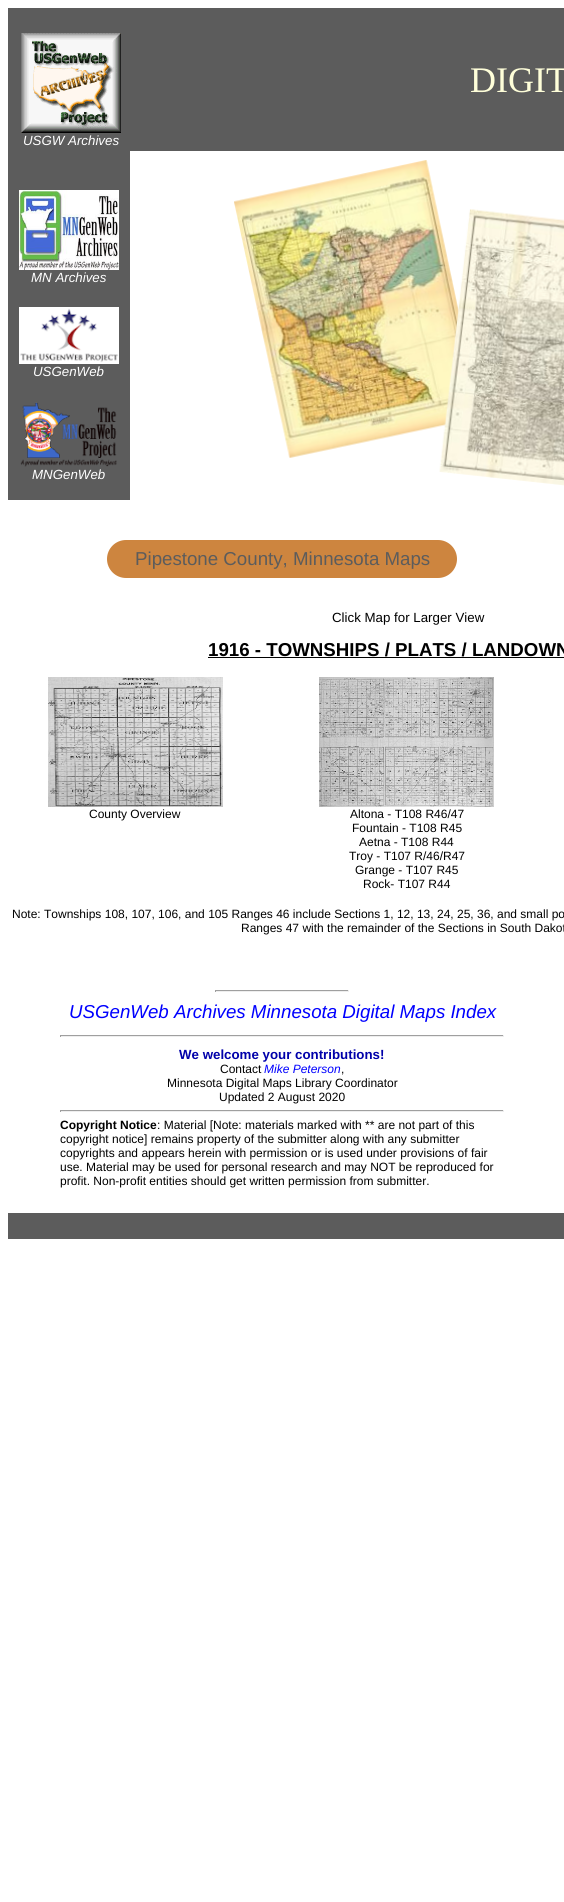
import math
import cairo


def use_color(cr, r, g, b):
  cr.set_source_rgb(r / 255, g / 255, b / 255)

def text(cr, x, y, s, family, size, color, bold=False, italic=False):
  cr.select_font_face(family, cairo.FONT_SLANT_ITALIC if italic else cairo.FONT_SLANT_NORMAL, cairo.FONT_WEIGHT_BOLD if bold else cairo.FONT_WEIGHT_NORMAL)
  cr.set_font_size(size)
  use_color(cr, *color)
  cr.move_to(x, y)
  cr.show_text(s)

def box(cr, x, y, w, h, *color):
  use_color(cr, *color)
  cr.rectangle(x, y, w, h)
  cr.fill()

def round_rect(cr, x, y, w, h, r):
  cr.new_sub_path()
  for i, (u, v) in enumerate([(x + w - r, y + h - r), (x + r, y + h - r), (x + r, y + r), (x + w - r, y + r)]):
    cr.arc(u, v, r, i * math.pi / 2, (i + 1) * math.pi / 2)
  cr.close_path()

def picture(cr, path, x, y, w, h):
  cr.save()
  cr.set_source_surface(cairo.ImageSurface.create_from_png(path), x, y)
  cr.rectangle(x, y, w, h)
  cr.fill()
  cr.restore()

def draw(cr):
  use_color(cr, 255, 255, 255)
  cr.paint()
  box(cr, 8, 8, 556, 492, 92, 92, 92)
  picture(cr, "img_01.png", 21, 33, 100, 100)
  picture(cr, "img_02.png", 19, 190, 100, 80)
  picture(cr, "img_03.png", 19, 307, 100, 57)
  picture(cr, "img_04.png", 20, 402, 97, 65)
  box(cr, 130, 151, 434, 349, 255, 255, 255)
  picture(cr, "img_05.png", 234, 160, 330, 326)
  use_color(cr, 205, 133, 63)
  round_rect(cr, 107, 540, 350, 38, 19)
  cr.fill()
  box(cr, 208, 657, 356, 1, 0, 0, 0)
  picture(cr, "img_06.png", 48, 677, 175, 130)
  picture(cr, "img_07.png", 319, 677, 175, 130)
  box(cr, 215, 990, 134, 1, 159, 159, 159)
  box(cr, 348, 990, 1, 2, 238, 238, 238)
  box(cr, 215, 991, 134, 1, 238, 238, 238)
  box(cr, 215, 990, 1, 2, 159, 159, 159)
  box(cr, 60, 1035, 444, 1, 159, 159, 159)
  box(cr, 503, 1035, 1, 2, 238, 238, 238)
  box(cr, 60, 1036, 444, 1, 238, 238, 238)
  box(cr, 60, 1035, 1, 2, 159, 159, 159)
  box(cr, 60, 1110, 444, 1, 159, 159, 159)
  box(cr, 503, 1110, 1, 2, 238, 238, 238)
  box(cr, 60, 1111, 444, 1, 238, 238, 238)
  box(cr, 60, 1110, 1, 2, 159, 159, 159)
  box(cr, 8, 1213, 556, 26, 92, 92, 92)
  text(cr, 470, 92, "DIGIT", "Liberation Serif", 36, (254, 254, 217))
  text(cr, 23, 145, "USGW Archives", "Liberation Sans", 13.3, (255, 255, 255), italic=True)
  text(cr, 31, 282, "MN Archives", "Liberation Sans", 13.3, (255, 255, 255), italic=True)
  text(cr, 33, 376, "USGenWeb", "Liberation Sans", 13.3, (255, 255, 255), italic=True)
  text(cr, 32, 479, "MNGenWeb", "Liberation Sans", 13.3, (255, 255, 255), italic=True)
  text(cr, 135, 565, "Pipestone County, Minnesota Maps", "Liberation Sans", 18.7, (92, 92, 92))
  text(cr, 332, 622, "Click Map for Larger View", "Liberation Sans", 13.3, (0, 0, 0))
  text(cr, 208, 656, "1916 - TOWNSHIPS / PLATS / LANDOWN", "Liberation Sans", 18.7, (0, 0, 0), bold=True)
  text(cr, 89, 818, "County Overview", "Liberation Sans", 12, (0, 0, 0))
  text(cr, 350, 818, "Altona - T108 R46/47", "Liberation Sans", 12, (0, 0, 0))
  text(cr, 352, 832, "Fountain - T108 R45", "Liberation Sans", 12, (0, 0, 0))
  text(cr, 359, 846, "Aetna - T108 R44", "Liberation Sans", 12, (0, 0, 0))
  text(cr, 349, 860, "Troy - T107 R/46/R47", "Liberation Sans", 12, (0, 0, 0))
  text(cr, 355, 874, "Grange - T107 R45", "Liberation Sans", 12, (0, 0, 0))
  text(cr, 363, 888, "Rock- T107 R44", "Liberation Sans", 12, (0, 0, 0))
  text(cr, 12, 918, "Note: Townships 108, 107, 106, and 105 Ranges 46 include Sections 1, 12, 13, 24, 25, 36, and small po", "Liberation Sans", 12, (0, 0, 0))
  text(cr, 241, 932, "Ranges 47 with the remainder of the Sections in South Dakot", "Liberation Sans", 12, (0, 0, 0))
  text(cr, 69, 1018, "USGenWeb Archives Minnesota Digital Maps Index", "Liberation Sans", 18.7, (0, 0, 255), italic=True)
  text(cr, 179, 1059, "We welcome your contributions!", "Liberation Sans", 13.3, (0, 0, 170), bold=True)
  text(cr, 220, 1073, "Contact", "Liberation Sans", 12, (0, 0, 0))
  text(cr, 264, 1073, "Mike Peterson", "Liberation Sans", 12, (0, 0, 255), italic=True)
  text(cr, 341, 1073, ",", "Liberation Sans", 12, (0, 0, 0))
  text(cr, 167, 1087, "Minnesota Digital Maps Library Coordinator", "Liberation Sans", 12, (0, 0, 0))
  text(cr, 219, 1101, "Updated 2 August 2020", "Liberation Sans", 12, (0, 0, 0))
  text(cr, 60, 1129, "Copyright Notice", "Liberation Sans", 12, (0, 0, 0), bold=True)
  text(cr, 157, 1129, ": Material [Note: materials marked with ** are not part of this", "Liberation Sans", 12, (0, 0, 0))
  text(cr, 60, 1143, "copyright notice] remains property of the submitter along with any submitter", "Liberation Sans", 12, (0, 0, 0))
  text(cr, 60, 1157, "copyrights and appears herein with permission or is used under provisions of fair", "Liberation Sans", 12, (0, 0, 0))
  text(cr, 60, 1171, "use. Material may be used for personal research and may NOT be reproduced for", "Liberation Sans", 12, (0, 0, 0))
  text(cr, 60, 1185, "profit. Non-profit entities should get written permission from submitter.", "Liberation Sans", 12, (0, 0, 0))


surface = cairo.ImageSurface(cairo.FORMAT_RGB24, 564, 1902)
cr = cairo.Context(surface)
options = cairo.FontOptions()
options.set_hint_metrics(cairo.HINT_METRICS_OFF)
options.set_hint_style(cairo.HINT_STYLE_NONE)
cr.set_font_options(options)
cr.set_miter_limit(4)
draw(cr)
surface.write_to_png("out.png")
